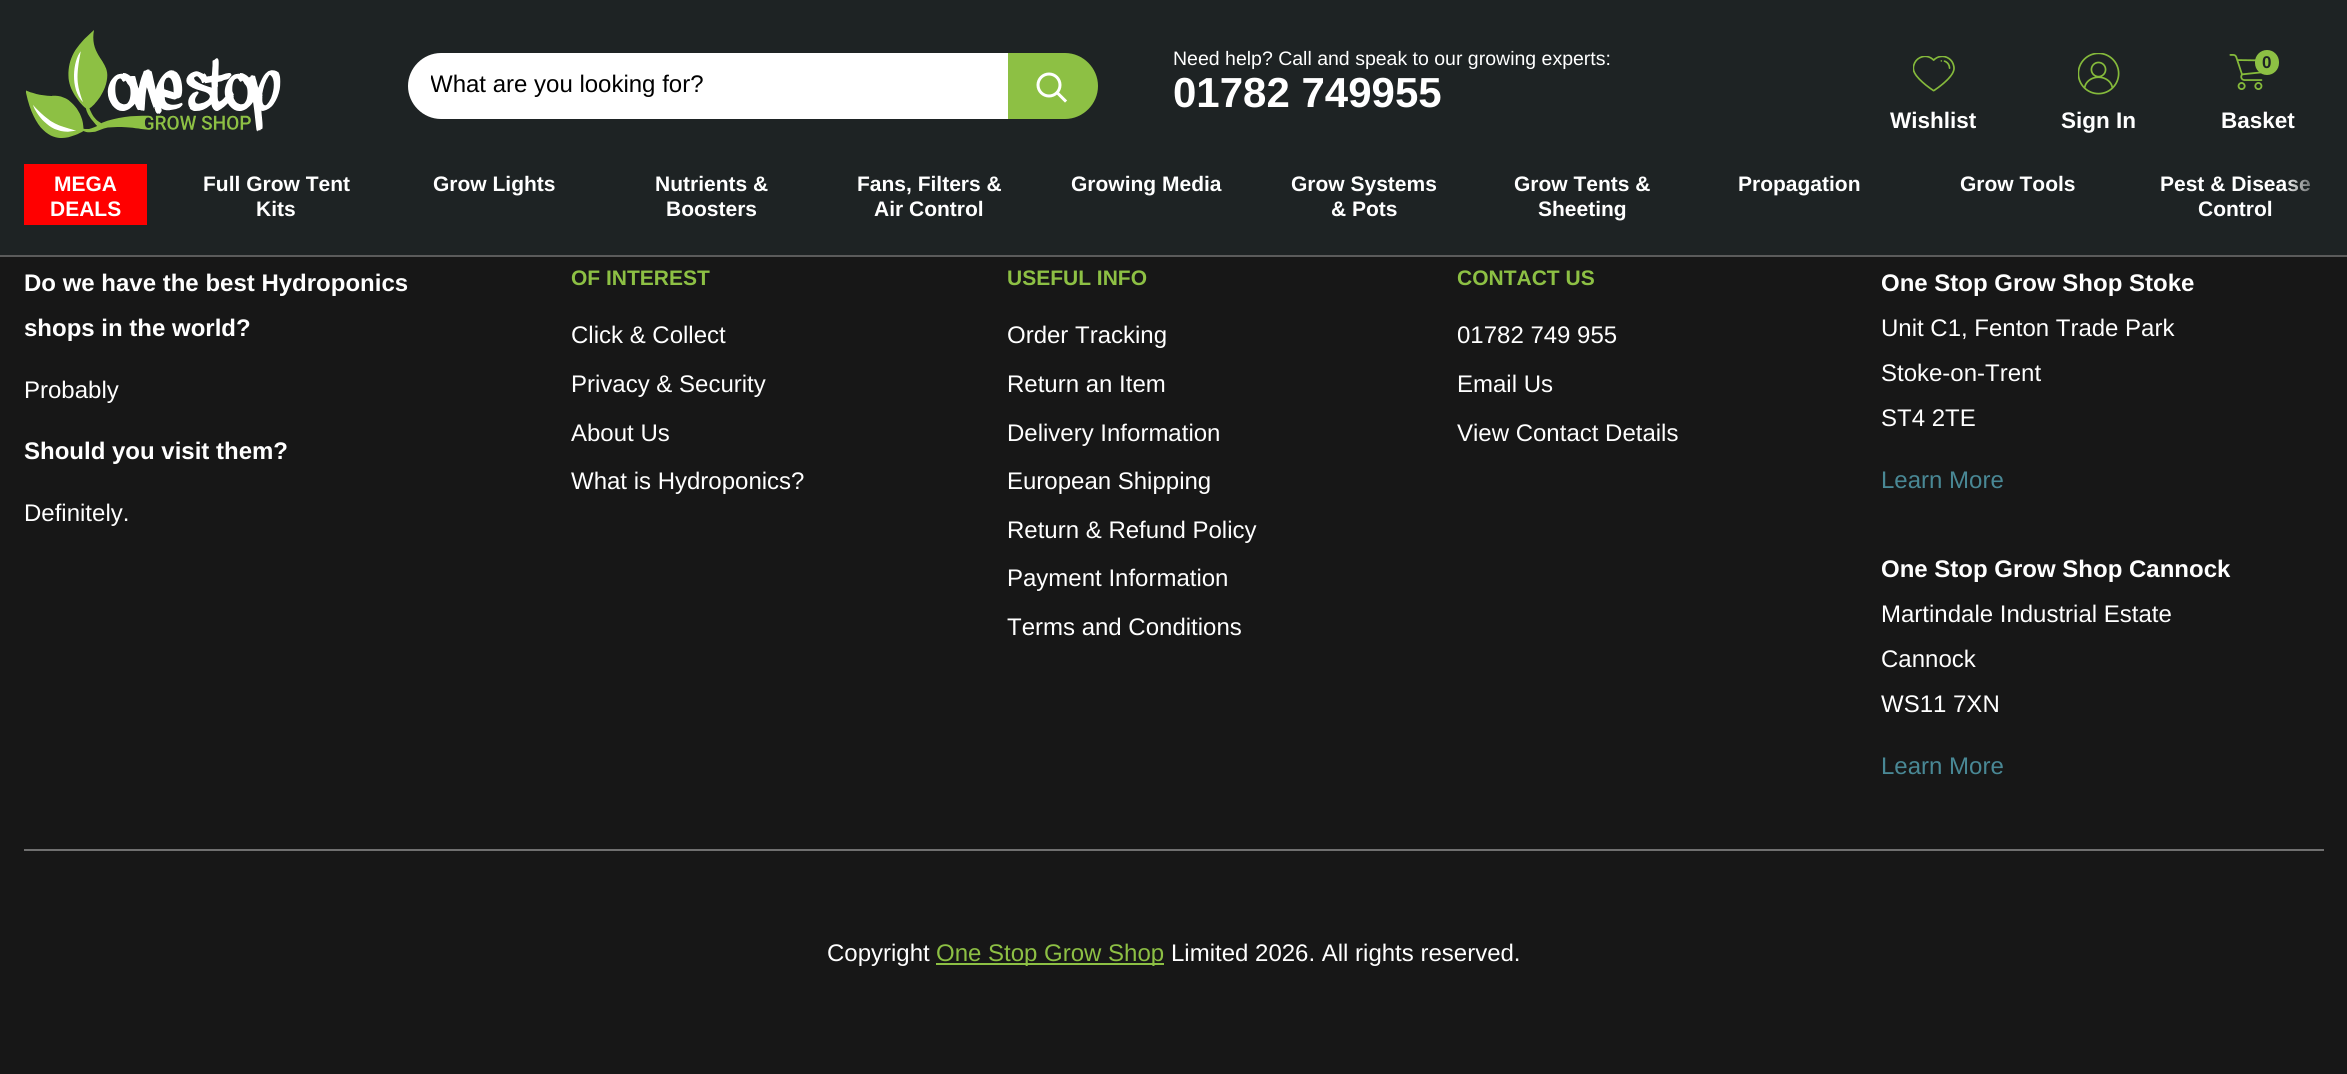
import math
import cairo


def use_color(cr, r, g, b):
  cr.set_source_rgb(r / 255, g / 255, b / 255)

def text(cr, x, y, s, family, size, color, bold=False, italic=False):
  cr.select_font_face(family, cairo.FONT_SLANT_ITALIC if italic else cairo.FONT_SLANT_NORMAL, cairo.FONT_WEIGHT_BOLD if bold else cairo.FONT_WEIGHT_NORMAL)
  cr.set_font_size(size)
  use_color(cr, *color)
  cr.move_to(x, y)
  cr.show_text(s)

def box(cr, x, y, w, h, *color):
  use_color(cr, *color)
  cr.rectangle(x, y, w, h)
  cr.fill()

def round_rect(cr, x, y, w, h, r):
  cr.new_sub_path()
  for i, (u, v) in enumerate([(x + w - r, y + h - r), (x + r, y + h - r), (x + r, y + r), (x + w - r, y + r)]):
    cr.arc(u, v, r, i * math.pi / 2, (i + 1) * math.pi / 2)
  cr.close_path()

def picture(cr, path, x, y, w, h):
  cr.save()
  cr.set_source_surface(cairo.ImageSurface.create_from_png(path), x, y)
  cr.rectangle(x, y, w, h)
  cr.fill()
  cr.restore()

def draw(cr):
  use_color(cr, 23, 23, 23)
  cr.paint()
  box(cr, 0, 0, 2347, 255, 30, 35, 36)
  picture(cr, "img_01.png", 26, 30, 255, 108)
  use_color(cr, 255, 255, 255)
  cr.new_path()
  cr.move_to(441, 53)
  cr.line_to(1008, 53)
  cr.line_to(1008, 119)
  cr.line_to(441, 119)
  cr.curve_to(423, 119, 408, 104, 408, 86)
  cr.curve_to(408, 68, 423, 53, 441, 53)
  cr.close_path()
  cr.fill()
  use_color(cr, 141, 192, 68)
  cr.new_path()
  cr.move_to(1008, 53)
  cr.line_to(1065, 53)
  cr.curve_to(1083, 53, 1098, 68, 1098, 86)
  cr.curve_to(1098, 104, 1083, 119, 1065, 119)
  cr.line_to(1008, 119)
  cr.close_path()
  cr.fill()
  cr.new_path()
  cr.move_to(1065, 100.5)
  cr.line_to(1057.5, 93)
  use_color(cr, 255, 255, 255)
  cr.set_line_width(3)
  cr.set_line_cap(cairo.LINE_CAP_SQUARE)
  cr.stroke()
  cr.arc(1049, 85, 11, 0, 2 * math.pi)
  cr.set_line_cap(cairo.LINE_CAP_BUTT)
  cr.stroke()
  picture(cr, "img_02.png", 1913, 56, 42, 36)
  picture(cr, "img_03.png", 2078, 53, 42, 42)
  picture(cr, "img_04.png", 2229, 54, 34, 36)
  use_color(cr, 141, 192, 68)
  round_rect(cr, 2255, 50, 24, 25, 12)
  cr.fill()
  box(cr, 0, 255, 2347, 2, 91, 91, 91)
  box(cr, 24, 164, 123, 61, 255, 0, 0)
  box(cr, 24, 849, 2300, 2, 112, 112, 112)
  box(cr, 936, 963, 228, 2, 141, 192, 68)
  cr.save()
  cr.rectangle(431, 72, 555, 27)
  cr.clip()
  text(cr, 430, 92, "What are you looking for?", "Liberation Sans", 24, (0, 0, 0))
  cr.restore()
  text(cr, 1173, 65, "Need help? Call and speak to our growing experts:", "Liberation Sans", 19.5, (255, 255, 255))
  text(cr, 1173, 107, "01782 749955", "Liberation Sans", 42, (255, 255, 255), bold=True)
  text(cr, 1890, 128, "Wishlist", "Liberation Sans", 22.5, (255, 255, 255), bold=True)
  text(cr, 2061, 128, "Sign In", "Liberation Sans", 22.5, (255, 255, 255), bold=True)
  text(cr, 2262, 68, "0", "Liberation Sans", 17, (30, 35, 36), bold=True)
  text(cr, 2221, 128, "Basket", "Liberation Sans", 22.5, (255, 255, 255), bold=True)
  text(cr, 54, 191, "MEGA", "Liberation Sans", 21, (255, 255, 255), bold=True)
  text(cr, 50, 216, "DEALS", "Liberation Sans", 21, (255, 255, 255), bold=True)
  text(cr, 203, 191, "Full Grow Tent", "Liberation Sans", 21, (255, 255, 255), bold=True)
  text(cr, 256, 216, "Kits", "Liberation Sans", 21, (255, 255, 255), bold=True)
  text(cr, 433, 191, "Grow Lights", "Liberation Sans", 21, (255, 255, 255), bold=True)
  text(cr, 655, 191, "Nutrients &", "Liberation Sans", 21, (255, 255, 255), bold=True)
  text(cr, 666, 216, "Boosters", "Liberation Sans", 21, (255, 255, 255), bold=True)
  text(cr, 857, 191, "Fans, Filters &", "Liberation Sans", 21, (255, 255, 255), bold=True)
  text(cr, 874, 216, "Air Control", "Liberation Sans", 21, (255, 255, 255), bold=True)
  text(cr, 1071, 191, "Growing Media", "Liberation Sans", 21, (255, 255, 255), bold=True)
  text(cr, 1291, 191, "Grow Systems", "Liberation Sans", 21, (255, 255, 255), bold=True)
  text(cr, 1331, 216, "& Pots", "Liberation Sans", 21, (255, 255, 255), bold=True)
  text(cr, 1514, 191, "Grow Tents &", "Liberation Sans", 21, (255, 255, 255), bold=True)
  text(cr, 1538, 216, "Sheeting", "Liberation Sans", 21, (255, 255, 255), bold=True)
  text(cr, 1738, 191, "Propagation", "Liberation Sans", 21, (255, 255, 255), bold=True)
  text(cr, 1960, 191, "Grow Tools", "Liberation Sans", 21, (255, 255, 255), bold=True)
  text(cr, 2160, 191, "Pest & Disease", "Liberation Sans", 21, (255, 255, 255), bold=True)
  text(cr, 2198, 216, "Control", "Liberation Sans", 21, (255, 255, 255), bold=True)
  gradient = cairo.LinearGradient(2288, 197, 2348, 197)
  gradient.add_color_stop_rgba(0, 0.118, 0.137, 0.141, 0.1)
  gradient.add_color_stop_rgba(0.35, 0.118, 0.137, 0.141, 0.6)
  gradient.add_color_stop_rgba(1, 0.118, 0.137, 0.141, 1)
  cr.set_source(gradient)
  cr.rectangle(2288, 179, 22, 13)
  cr.fill()
  text(cr, 24, 291, "Do we have the best Hydroponics", "Liberation Sans", 24, (255, 255, 255), bold=True)
  text(cr, 24, 336, "shops in the world?", "Liberation Sans", 24, (255, 255, 255), bold=True)
  text(cr, 24, 398, "Probably", "Liberation Sans", 24, (255, 255, 255))
  text(cr, 24, 459, "Should you visit them?", "Liberation Sans", 24, (255, 255, 255), bold=True)
  text(cr, 24, 521, "Definitely.", "Liberation Sans", 24, (255, 255, 255))
  text(cr, 571, 285, "OF INTEREST", "Liberation Sans", 21, (141, 192, 68), bold=True)
  text(cr, 571, 343, "Click & Collect", "Liberation Sans", 24, (255, 255, 255))
  text(cr, 571, 392, "Privacy & Security", "Liberation Sans", 24, (255, 255, 255))
  text(cr, 571, 441, "About Us", "Liberation Sans", 24, (255, 255, 255))
  text(cr, 571, 489, "What is Hydroponics?", "Liberation Sans", 24, (255, 255, 255))
  text(cr, 1007, 285, "USEFUL INFO", "Liberation Sans", 21, (141, 192, 68), bold=True)
  text(cr, 1007, 343, "Order Tracking", "Liberation Sans", 24, (255, 255, 255))
  text(cr, 1007, 392, "Return an Item", "Liberation Sans", 24, (255, 255, 255))
  text(cr, 1007, 441, "Delivery Information", "Liberation Sans", 24, (255, 255, 255))
  text(cr, 1007, 489, "European Shipping", "Liberation Sans", 24, (255, 255, 255))
  text(cr, 1007, 538, "Return & Refund Policy", "Liberation Sans", 24, (255, 255, 255))
  text(cr, 1007, 586, "Payment Information", "Liberation Sans", 24, (255, 255, 255))
  text(cr, 1007, 635, "Terms and Conditions", "Liberation Sans", 24, (255, 255, 255))
  text(cr, 1457, 285, "CONTACT US", "Liberation Sans", 21, (141, 192, 68), bold=True)
  text(cr, 1457, 343, "01782 749 955", "Liberation Sans", 24, (255, 255, 255))
  text(cr, 1457, 392, "Email Us", "Liberation Sans", 24, (255, 255, 255))
  text(cr, 1457, 441, "View Contact Details", "Liberation Sans", 24, (255, 255, 255))
  text(cr, 1881, 291, "One Stop Grow Shop Stoke", "Liberation Sans", 24, (255, 255, 255), bold=True)
  text(cr, 1881, 336, "Unit C1, Fenton Trade Park", "Liberation Sans", 24, (255, 255, 255))
  text(cr, 1881, 381, "Stoke-on-Trent", "Liberation Sans", 24, (255, 255, 255))
  text(cr, 1881, 426, "ST4 2TE", "Liberation Sans", 24, (255, 255, 255))
  text(cr, 1881, 488, "Learn More", "Liberation Sans", 24, (73, 136, 149))
  text(cr, 1881, 577, "One Stop Grow Shop Cannock", "Liberation Sans", 24, (255, 255, 255), bold=True)
  text(cr, 1881, 622, "Martindale Industrial Estate", "Liberation Sans", 24, (255, 255, 255))
  text(cr, 1881, 667, "Cannock", "Liberation Sans", 24, (255, 255, 255))
  text(cr, 1881, 712, "WS11 7XN", "Liberation Sans", 24, (255, 255, 255))
  text(cr, 1881, 774, "Learn More", "Liberation Sans", 24, (73, 136, 149))
  text(cr, 827, 961, "Copyright", "Liberation Sans", 24, (255, 255, 255))
  text(cr, 936, 961, "One Stop Grow Shop", "Liberation Sans", 24, (141, 192, 68))
  text(cr, 1171, 961, "Limited 2026. All rights reserved.", "Liberation Sans", 24, (255, 255, 255))


surface = cairo.ImageSurface(cairo.FORMAT_RGB24, 2347, 1074)
cr = cairo.Context(surface)
options = cairo.FontOptions()
options.set_hint_metrics(cairo.HINT_METRICS_OFF)
options.set_hint_style(cairo.HINT_STYLE_NONE)
cr.set_font_options(options)
cr.set_miter_limit(4)
draw(cr)
surface.write_to_png("out.png")
